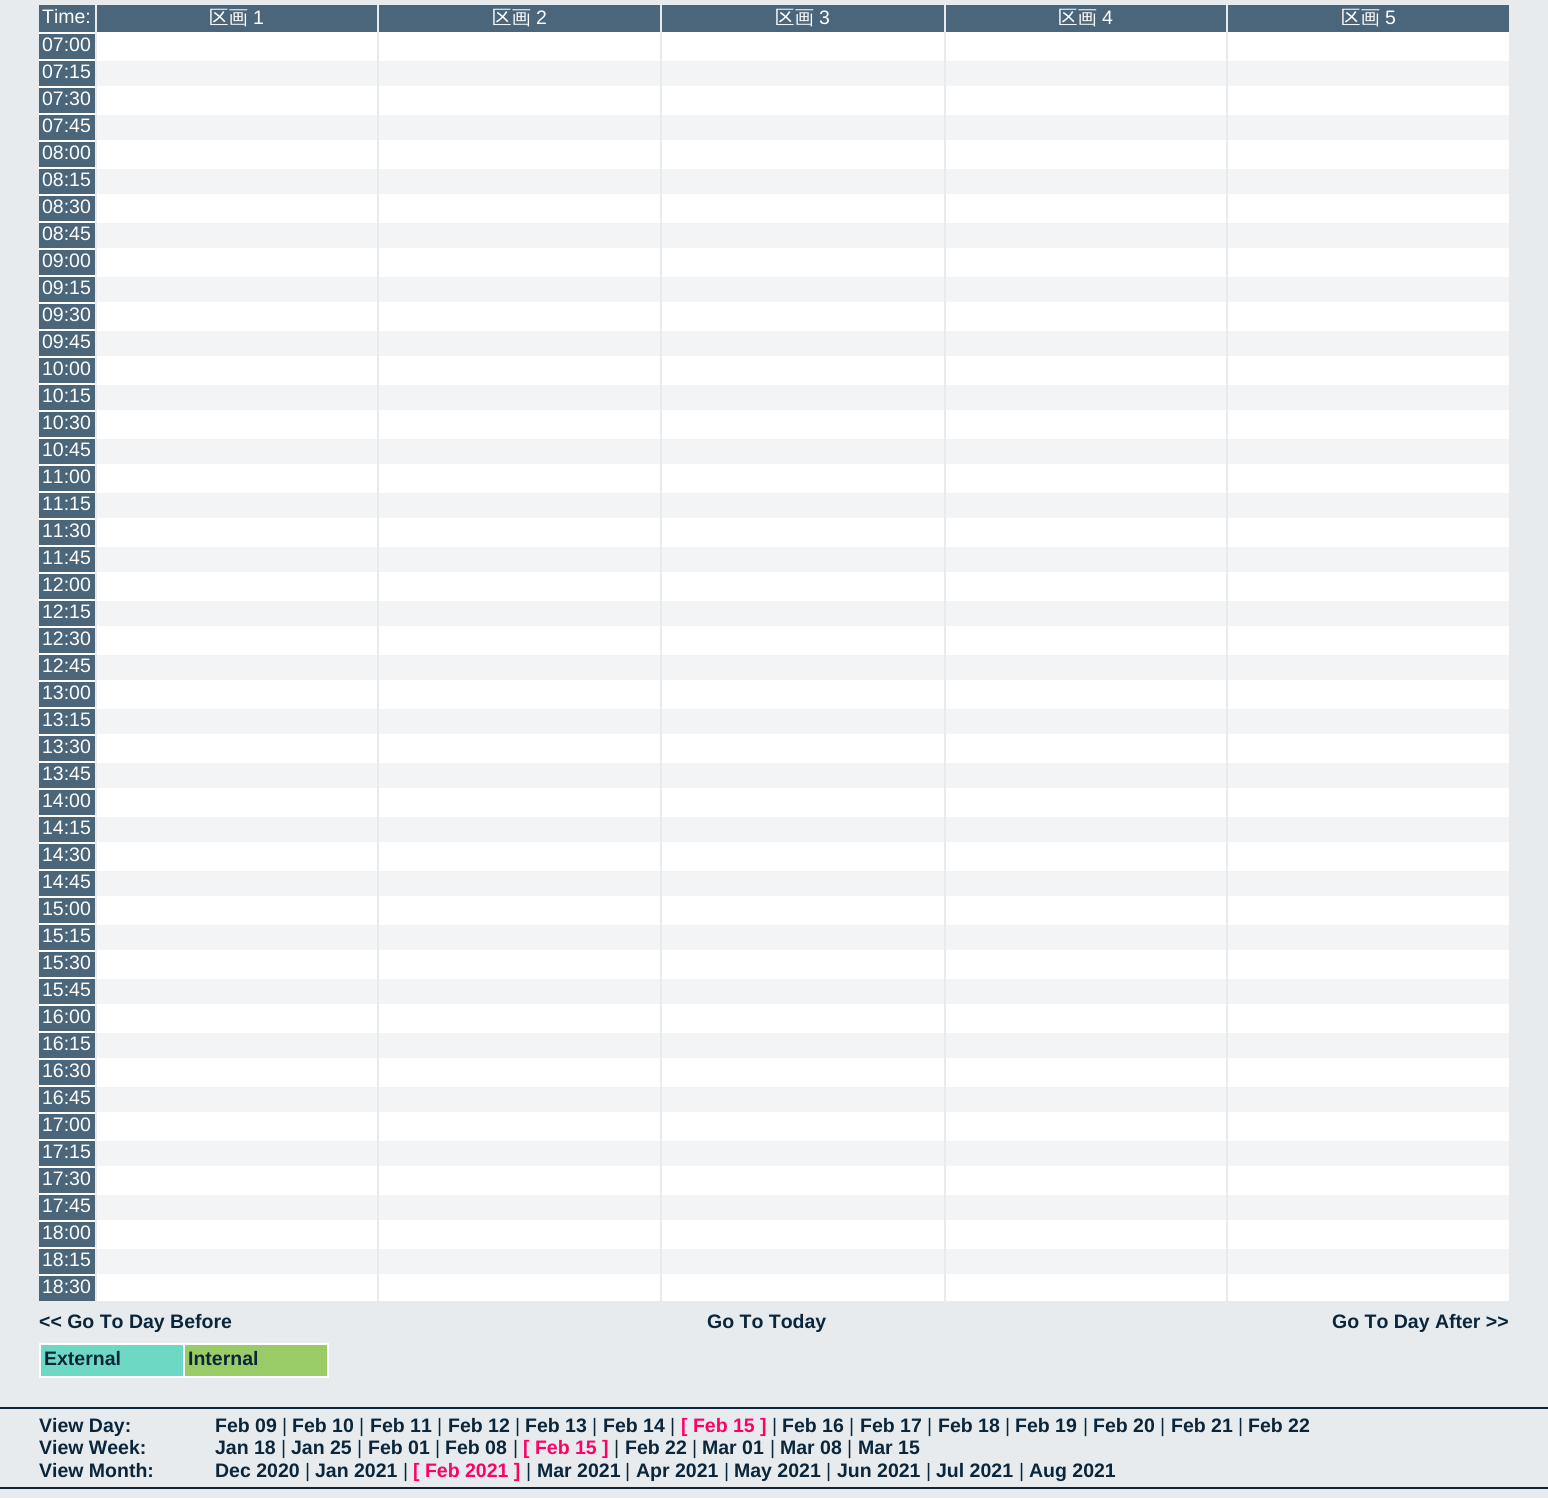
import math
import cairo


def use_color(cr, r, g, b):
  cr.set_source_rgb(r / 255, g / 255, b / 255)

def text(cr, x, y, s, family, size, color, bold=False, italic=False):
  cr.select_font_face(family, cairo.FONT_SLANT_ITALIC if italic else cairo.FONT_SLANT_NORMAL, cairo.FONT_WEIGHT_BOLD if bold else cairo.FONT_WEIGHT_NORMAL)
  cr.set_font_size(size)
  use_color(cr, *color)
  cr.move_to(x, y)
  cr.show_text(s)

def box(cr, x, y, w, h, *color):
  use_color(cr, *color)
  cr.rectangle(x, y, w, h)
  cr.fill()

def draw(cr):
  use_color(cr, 231, 235, 238)
  cr.paint()
  box(cr, 39, 5, 56, 27, 75, 102, 123)
  box(cr, 97, 5, 280, 27, 75, 102, 123)
  box(cr, 379, 5, 281, 27, 75, 102, 123)
  box(cr, 662, 5, 282, 27, 75, 102, 123)
  box(cr, 946, 5, 280, 27, 75, 102, 123)
  box(cr, 1228, 5, 281, 27, 75, 102, 123)
  box(cr, 39, 34, 56, 25, 75, 102, 123)
  box(cr, 39, 32, 56, 2, 255, 255, 255)
  box(cr, 97, 32, 280, 27, 255, 255, 255)
  box(cr, 379, 32, 281, 27, 255, 255, 255)
  box(cr, 662, 32, 282, 27, 255, 255, 255)
  box(cr, 946, 32, 280, 27, 255, 255, 255)
  box(cr, 1228, 32, 281, 27, 255, 255, 255)
  box(cr, 39, 61, 56, 25, 75, 102, 123)
  box(cr, 39, 59, 1470, 2, 255, 255, 255)
  box(cr, 97, 61, 280, 25, 242, 244, 246)
  box(cr, 95, 59, 2, 2, 231, 235, 238)
  box(cr, 379, 61, 281, 25, 242, 244, 246)
  box(cr, 377, 59, 2, 2, 231, 235, 238)
  box(cr, 662, 61, 282, 25, 242, 244, 246)
  box(cr, 660, 59, 2, 2, 231, 235, 238)
  box(cr, 946, 61, 280, 25, 242, 244, 246)
  box(cr, 944, 59, 2, 2, 231, 235, 238)
  box(cr, 1228, 61, 281, 25, 242, 244, 246)
  box(cr, 1226, 59, 2, 2, 231, 235, 238)
  box(cr, 39, 88, 56, 25, 75, 102, 123)
  box(cr, 39, 86, 56, 2, 255, 255, 255)
  box(cr, 97, 86, 280, 27, 255, 255, 255)
  box(cr, 379, 86, 281, 27, 255, 255, 255)
  box(cr, 662, 86, 282, 27, 255, 255, 255)
  box(cr, 946, 86, 280, 27, 255, 255, 255)
  box(cr, 1228, 86, 281, 27, 255, 255, 255)
  box(cr, 39, 115, 56, 25, 75, 102, 123)
  box(cr, 39, 113, 1470, 2, 255, 255, 255)
  box(cr, 97, 115, 280, 25, 242, 244, 246)
  box(cr, 95, 113, 2, 2, 231, 235, 238)
  box(cr, 379, 115, 281, 25, 242, 244, 246)
  box(cr, 377, 113, 2, 2, 231, 235, 238)
  box(cr, 662, 115, 282, 25, 242, 244, 246)
  box(cr, 660, 113, 2, 2, 231, 235, 238)
  box(cr, 946, 115, 280, 25, 242, 244, 246)
  box(cr, 944, 113, 2, 2, 231, 235, 238)
  box(cr, 1228, 115, 281, 25, 242, 244, 246)
  box(cr, 1226, 113, 2, 2, 231, 235, 238)
  box(cr, 39, 142, 56, 25, 75, 102, 123)
  box(cr, 39, 140, 56, 2, 255, 255, 255)
  box(cr, 97, 140, 280, 27, 255, 255, 255)
  box(cr, 379, 140, 281, 27, 255, 255, 255)
  box(cr, 662, 140, 282, 27, 255, 255, 255)
  box(cr, 946, 140, 280, 27, 255, 255, 255)
  box(cr, 1228, 140, 281, 27, 255, 255, 255)
  box(cr, 39, 169, 56, 25, 75, 102, 123)
  box(cr, 39, 167, 1470, 2, 255, 255, 255)
  box(cr, 97, 169, 280, 25, 242, 244, 246)
  box(cr, 95, 167, 2, 2, 231, 235, 238)
  box(cr, 379, 169, 281, 25, 242, 244, 246)
  box(cr, 377, 167, 2, 2, 231, 235, 238)
  box(cr, 662, 169, 282, 25, 242, 244, 246)
  box(cr, 660, 167, 2, 2, 231, 235, 238)
  box(cr, 946, 169, 280, 25, 242, 244, 246)
  box(cr, 944, 167, 2, 2, 231, 235, 238)
  box(cr, 1228, 169, 281, 25, 242, 244, 246)
  box(cr, 1226, 167, 2, 2, 231, 235, 238)
  box(cr, 39, 196, 56, 25, 75, 102, 123)
  box(cr, 39, 194, 56, 2, 255, 255, 255)
  box(cr, 97, 194, 280, 27, 255, 255, 255)
  box(cr, 379, 194, 281, 27, 255, 255, 255)
  box(cr, 662, 194, 282, 27, 255, 255, 255)
  box(cr, 946, 194, 280, 27, 255, 255, 255)
  box(cr, 1228, 194, 281, 27, 255, 255, 255)
  box(cr, 39, 223, 56, 25, 75, 102, 123)
  box(cr, 39, 221, 1470, 2, 255, 255, 255)
  box(cr, 97, 223, 280, 25, 242, 244, 246)
  box(cr, 95, 221, 2, 2, 231, 235, 238)
  box(cr, 379, 223, 281, 25, 242, 244, 246)
  box(cr, 377, 221, 2, 2, 231, 235, 238)
  box(cr, 662, 223, 282, 25, 242, 244, 246)
  box(cr, 660, 221, 2, 2, 231, 235, 238)
  box(cr, 946, 223, 280, 25, 242, 244, 246)
  box(cr, 944, 221, 2, 2, 231, 235, 238)
  box(cr, 1228, 223, 281, 25, 242, 244, 246)
  box(cr, 1226, 221, 2, 2, 231, 235, 238)
  box(cr, 39, 250, 56, 25, 75, 102, 123)
  box(cr, 39, 248, 56, 2, 255, 255, 255)
  box(cr, 97, 248, 280, 27, 255, 255, 255)
  box(cr, 379, 248, 281, 27, 255, 255, 255)
  box(cr, 662, 248, 282, 27, 255, 255, 255)
  box(cr, 946, 248, 280, 27, 255, 255, 255)
  box(cr, 1228, 248, 281, 27, 255, 255, 255)
  box(cr, 39, 277, 56, 25, 75, 102, 123)
  box(cr, 39, 275, 1470, 2, 255, 255, 255)
  box(cr, 97, 277, 280, 25, 242, 244, 246)
  box(cr, 95, 275, 2, 2, 231, 235, 238)
  box(cr, 379, 277, 281, 25, 242, 244, 246)
  box(cr, 377, 275, 2, 2, 231, 235, 238)
  box(cr, 662, 277, 282, 25, 242, 244, 246)
  box(cr, 660, 275, 2, 2, 231, 235, 238)
  box(cr, 946, 277, 280, 25, 242, 244, 246)
  box(cr, 944, 275, 2, 2, 231, 235, 238)
  box(cr, 1228, 277, 281, 25, 242, 244, 246)
  box(cr, 1226, 275, 2, 2, 231, 235, 238)
  box(cr, 39, 304, 56, 25, 75, 102, 123)
  box(cr, 39, 302, 56, 2, 255, 255, 255)
  box(cr, 97, 302, 280, 27, 255, 255, 255)
  box(cr, 379, 302, 281, 27, 255, 255, 255)
  box(cr, 662, 302, 282, 27, 255, 255, 255)
  box(cr, 946, 302, 280, 27, 255, 255, 255)
  box(cr, 1228, 302, 281, 27, 255, 255, 255)
  box(cr, 39, 331, 56, 25, 75, 102, 123)
  box(cr, 39, 329, 1470, 2, 255, 255, 255)
  box(cr, 97, 331, 280, 25, 242, 244, 246)
  box(cr, 95, 329, 2, 2, 231, 235, 238)
  box(cr, 379, 331, 281, 25, 242, 244, 246)
  box(cr, 377, 329, 2, 2, 231, 235, 238)
  box(cr, 662, 331, 282, 25, 242, 244, 246)
  box(cr, 660, 329, 2, 2, 231, 235, 238)
  box(cr, 946, 331, 280, 25, 242, 244, 246)
  box(cr, 944, 329, 2, 2, 231, 235, 238)
  box(cr, 1228, 331, 281, 25, 242, 244, 246)
  box(cr, 1226, 329, 2, 2, 231, 235, 238)
  box(cr, 39, 358, 56, 25, 75, 102, 123)
  box(cr, 39, 356, 56, 2, 255, 255, 255)
  box(cr, 97, 356, 280, 27, 255, 255, 255)
  box(cr, 379, 356, 281, 27, 255, 255, 255)
  box(cr, 662, 356, 282, 27, 255, 255, 255)
  box(cr, 946, 356, 280, 27, 255, 255, 255)
  box(cr, 1228, 356, 281, 27, 255, 255, 255)
  box(cr, 39, 385, 56, 25, 75, 102, 123)
  box(cr, 39, 383, 1470, 2, 255, 255, 255)
  box(cr, 97, 385, 280, 25, 242, 244, 246)
  box(cr, 95, 383, 2, 2, 231, 235, 238)
  box(cr, 379, 385, 281, 25, 242, 244, 246)
  box(cr, 377, 383, 2, 2, 231, 235, 238)
  box(cr, 662, 385, 282, 25, 242, 244, 246)
  box(cr, 660, 383, 2, 2, 231, 235, 238)
  box(cr, 946, 385, 280, 25, 242, 244, 246)
  box(cr, 944, 383, 2, 2, 231, 235, 238)
  box(cr, 1228, 385, 281, 25, 242, 244, 246)
  box(cr, 1226, 383, 2, 2, 231, 235, 238)
  box(cr, 39, 412, 56, 25, 75, 102, 123)
  box(cr, 39, 410, 56, 2, 255, 255, 255)
  box(cr, 97, 410, 280, 27, 255, 255, 255)
  box(cr, 379, 410, 281, 27, 255, 255, 255)
  box(cr, 662, 410, 282, 27, 255, 255, 255)
  box(cr, 946, 410, 280, 27, 255, 255, 255)
  box(cr, 1228, 410, 281, 27, 255, 255, 255)
  box(cr, 39, 439, 56, 25, 75, 102, 123)
  box(cr, 39, 437, 1470, 2, 255, 255, 255)
  box(cr, 97, 439, 280, 25, 242, 244, 246)
  box(cr, 95, 437, 2, 2, 231, 235, 238)
  box(cr, 379, 439, 281, 25, 242, 244, 246)
  box(cr, 377, 437, 2, 2, 231, 235, 238)
  box(cr, 662, 439, 282, 25, 242, 244, 246)
  box(cr, 660, 437, 2, 2, 231, 235, 238)
  box(cr, 946, 439, 280, 25, 242, 244, 246)
  box(cr, 944, 437, 2, 2, 231, 235, 238)
  box(cr, 1228, 439, 281, 25, 242, 244, 246)
  box(cr, 1226, 437, 2, 2, 231, 235, 238)
  box(cr, 39, 466, 56, 25, 75, 102, 123)
  box(cr, 39, 464, 56, 2, 255, 255, 255)
  box(cr, 97, 464, 280, 27, 255, 255, 255)
  box(cr, 379, 464, 281, 27, 255, 255, 255)
  box(cr, 662, 464, 282, 27, 255, 255, 255)
  box(cr, 946, 464, 280, 27, 255, 255, 255)
  box(cr, 1228, 464, 281, 27, 255, 255, 255)
  box(cr, 39, 493, 56, 25, 75, 102, 123)
  box(cr, 39, 491, 1470, 2, 255, 255, 255)
  box(cr, 97, 493, 280, 25, 242, 244, 246)
  box(cr, 95, 491, 2, 2, 231, 235, 238)
  box(cr, 379, 493, 281, 25, 242, 244, 246)
  box(cr, 377, 491, 2, 2, 231, 235, 238)
  box(cr, 662, 493, 282, 25, 242, 244, 246)
  box(cr, 660, 491, 2, 2, 231, 235, 238)
  box(cr, 946, 493, 280, 25, 242, 244, 246)
  box(cr, 944, 491, 2, 2, 231, 235, 238)
  box(cr, 1228, 493, 281, 25, 242, 244, 246)
  box(cr, 1226, 491, 2, 2, 231, 235, 238)
  box(cr, 39, 520, 56, 25, 75, 102, 123)
  box(cr, 39, 518, 56, 2, 255, 255, 255)
  box(cr, 97, 518, 280, 27, 255, 255, 255)
  box(cr, 379, 518, 281, 27, 255, 255, 255)
  box(cr, 662, 518, 282, 27, 255, 255, 255)
  box(cr, 946, 518, 280, 27, 255, 255, 255)
  box(cr, 1228, 518, 281, 27, 255, 255, 255)
  box(cr, 39, 547, 56, 25, 75, 102, 123)
  box(cr, 39, 545, 1470, 2, 255, 255, 255)
  box(cr, 97, 547, 280, 25, 242, 244, 246)
  box(cr, 95, 545, 2, 2, 231, 235, 238)
  box(cr, 379, 547, 281, 25, 242, 244, 246)
  box(cr, 377, 545, 2, 2, 231, 235, 238)
  box(cr, 662, 547, 282, 25, 242, 244, 246)
  box(cr, 660, 545, 2, 2, 231, 235, 238)
  box(cr, 946, 547, 280, 25, 242, 244, 246)
  box(cr, 944, 545, 2, 2, 231, 235, 238)
  box(cr, 1228, 547, 281, 25, 242, 244, 246)
  box(cr, 1226, 545, 2, 2, 231, 235, 238)
  box(cr, 39, 574, 56, 25, 75, 102, 123)
  box(cr, 39, 572, 56, 2, 255, 255, 255)
  box(cr, 97, 572, 280, 27, 255, 255, 255)
  box(cr, 379, 572, 281, 27, 255, 255, 255)
  box(cr, 662, 572, 282, 27, 255, 255, 255)
  box(cr, 946, 572, 280, 27, 255, 255, 255)
  box(cr, 1228, 572, 281, 27, 255, 255, 255)
  box(cr, 39, 601, 56, 25, 75, 102, 123)
  box(cr, 39, 599, 1470, 2, 255, 255, 255)
  box(cr, 97, 601, 280, 25, 242, 244, 246)
  box(cr, 95, 599, 2, 2, 231, 235, 238)
  box(cr, 379, 601, 281, 25, 242, 244, 246)
  box(cr, 377, 599, 2, 2, 231, 235, 238)
  box(cr, 662, 601, 282, 25, 242, 244, 246)
  box(cr, 660, 599, 2, 2, 231, 235, 238)
  box(cr, 946, 601, 280, 25, 242, 244, 246)
  box(cr, 944, 599, 2, 2, 231, 235, 238)
  box(cr, 1228, 601, 281, 25, 242, 244, 246)
  box(cr, 1226, 599, 2, 2, 231, 235, 238)
  box(cr, 39, 628, 56, 25, 75, 102, 123)
  box(cr, 39, 626, 56, 2, 255, 255, 255)
  box(cr, 97, 626, 280, 27, 255, 255, 255)
  box(cr, 379, 626, 281, 27, 255, 255, 255)
  box(cr, 662, 626, 282, 27, 255, 255, 255)
  box(cr, 946, 626, 280, 27, 255, 255, 255)
  box(cr, 1228, 626, 281, 27, 255, 255, 255)
  box(cr, 39, 655, 56, 25, 75, 102, 123)
  box(cr, 39, 653, 1470, 2, 255, 255, 255)
  box(cr, 97, 655, 280, 25, 242, 244, 246)
  box(cr, 95, 653, 2, 2, 231, 235, 238)
  box(cr, 379, 655, 281, 25, 242, 244, 246)
  box(cr, 377, 653, 2, 2, 231, 235, 238)
  box(cr, 662, 655, 282, 25, 242, 244, 246)
  box(cr, 660, 653, 2, 2, 231, 235, 238)
  box(cr, 946, 655, 280, 25, 242, 244, 246)
  box(cr, 944, 653, 2, 2, 231, 235, 238)
  box(cr, 1228, 655, 281, 25, 242, 244, 246)
  box(cr, 1226, 653, 2, 2, 231, 235, 238)
  box(cr, 39, 682, 56, 25, 75, 102, 123)
  box(cr, 39, 680, 56, 2, 255, 255, 255)
  box(cr, 97, 680, 280, 27, 255, 255, 255)
  box(cr, 379, 680, 281, 27, 255, 255, 255)
  box(cr, 662, 680, 282, 27, 255, 255, 255)
  box(cr, 946, 680, 280, 27, 255, 255, 255)
  box(cr, 1228, 680, 281, 27, 255, 255, 255)
  box(cr, 39, 709, 56, 25, 75, 102, 123)
  box(cr, 39, 707, 1470, 2, 255, 255, 255)
  box(cr, 97, 709, 280, 25, 242, 244, 246)
  box(cr, 95, 707, 2, 2, 231, 235, 238)
  box(cr, 379, 709, 281, 25, 242, 244, 246)
  box(cr, 377, 707, 2, 2, 231, 235, 238)
  box(cr, 662, 709, 282, 25, 242, 244, 246)
  box(cr, 660, 707, 2, 2, 231, 235, 238)
  box(cr, 946, 709, 280, 25, 242, 244, 246)
  box(cr, 944, 707, 2, 2, 231, 235, 238)
  box(cr, 1228, 709, 281, 25, 242, 244, 246)
  box(cr, 1226, 707, 2, 2, 231, 235, 238)
  box(cr, 39, 736, 56, 25, 75, 102, 123)
  box(cr, 39, 734, 56, 2, 255, 255, 255)
  box(cr, 97, 734, 280, 27, 255, 255, 255)
  box(cr, 379, 734, 281, 27, 255, 255, 255)
  box(cr, 662, 734, 282, 27, 255, 255, 255)
  box(cr, 946, 734, 280, 27, 255, 255, 255)
  box(cr, 1228, 734, 281, 27, 255, 255, 255)
  box(cr, 39, 763, 56, 25, 75, 102, 123)
  box(cr, 39, 761, 1470, 2, 255, 255, 255)
  box(cr, 97, 763, 280, 25, 242, 244, 246)
  box(cr, 95, 761, 2, 2, 231, 235, 238)
  box(cr, 379, 763, 281, 25, 242, 244, 246)
  box(cr, 377, 761, 2, 2, 231, 235, 238)
  box(cr, 662, 763, 282, 25, 242, 244, 246)
  box(cr, 660, 761, 2, 2, 231, 235, 238)
  box(cr, 946, 763, 280, 25, 242, 244, 246)
  box(cr, 944, 761, 2, 2, 231, 235, 238)
  box(cr, 1228, 763, 281, 25, 242, 244, 246)
  box(cr, 1226, 761, 2, 2, 231, 235, 238)
  box(cr, 39, 790, 56, 25, 75, 102, 123)
  box(cr, 39, 788, 56, 2, 255, 255, 255)
  box(cr, 97, 788, 280, 27, 255, 255, 255)
  box(cr, 379, 788, 281, 27, 255, 255, 255)
  box(cr, 662, 788, 282, 27, 255, 255, 255)
  box(cr, 946, 788, 280, 27, 255, 255, 255)
  box(cr, 1228, 788, 281, 27, 255, 255, 255)
  box(cr, 39, 817, 56, 25, 75, 102, 123)
  box(cr, 39, 815, 1470, 2, 255, 255, 255)
  box(cr, 97, 817, 280, 25, 242, 244, 246)
  box(cr, 95, 815, 2, 2, 231, 235, 238)
  box(cr, 379, 817, 281, 25, 242, 244, 246)
  box(cr, 377, 815, 2, 2, 231, 235, 238)
  box(cr, 662, 817, 282, 25, 242, 244, 246)
  box(cr, 660, 815, 2, 2, 231, 235, 238)
  box(cr, 946, 817, 280, 25, 242, 244, 246)
  box(cr, 944, 815, 2, 2, 231, 235, 238)
  box(cr, 1228, 817, 281, 25, 242, 244, 246)
  box(cr, 1226, 815, 2, 2, 231, 235, 238)
  box(cr, 39, 844, 56, 25, 75, 102, 123)
  box(cr, 39, 842, 56, 2, 255, 255, 255)
  box(cr, 97, 842, 280, 27, 255, 255, 255)
  box(cr, 379, 842, 281, 27, 255, 255, 255)
  box(cr, 662, 842, 282, 27, 255, 255, 255)
  box(cr, 946, 842, 280, 27, 255, 255, 255)
  box(cr, 1228, 842, 281, 27, 255, 255, 255)
  box(cr, 39, 871, 56, 25, 75, 102, 123)
  box(cr, 39, 869, 1470, 2, 255, 255, 255)
  box(cr, 97, 871, 280, 25, 242, 244, 246)
  box(cr, 95, 869, 2, 2, 231, 235, 238)
  box(cr, 379, 871, 281, 25, 242, 244, 246)
  box(cr, 377, 869, 2, 2, 231, 235, 238)
  box(cr, 662, 871, 282, 25, 242, 244, 246)
  box(cr, 660, 869, 2, 2, 231, 235, 238)
  box(cr, 946, 871, 280, 25, 242, 244, 246)
  box(cr, 944, 869, 2, 2, 231, 235, 238)
  box(cr, 1228, 871, 281, 25, 242, 244, 246)
  box(cr, 1226, 869, 2, 2, 231, 235, 238)
  box(cr, 39, 898, 56, 25, 75, 102, 123)
  box(cr, 39, 896, 56, 2, 255, 255, 255)
  box(cr, 97, 896, 280, 27, 255, 255, 255)
  box(cr, 379, 896, 281, 27, 255, 255, 255)
  box(cr, 662, 896, 282, 27, 255, 255, 255)
  box(cr, 946, 896, 280, 27, 255, 255, 255)
  box(cr, 1228, 896, 281, 27, 255, 255, 255)
  box(cr, 39, 925, 56, 25, 75, 102, 123)
  box(cr, 39, 923, 1470, 2, 255, 255, 255)
  box(cr, 97, 925, 280, 25, 242, 244, 246)
  box(cr, 95, 923, 2, 2, 231, 235, 238)
  box(cr, 379, 925, 281, 25, 242, 244, 246)
  box(cr, 377, 923, 2, 2, 231, 235, 238)
  box(cr, 662, 925, 282, 25, 242, 244, 246)
  box(cr, 660, 923, 2, 2, 231, 235, 238)
  box(cr, 946, 925, 280, 25, 242, 244, 246)
  box(cr, 944, 923, 2, 2, 231, 235, 238)
  box(cr, 1228, 925, 281, 25, 242, 244, 246)
  box(cr, 1226, 923, 2, 2, 231, 235, 238)
  box(cr, 39, 952, 56, 25, 75, 102, 123)
  box(cr, 39, 950, 56, 2, 255, 255, 255)
  box(cr, 97, 950, 280, 27, 255, 255, 255)
  box(cr, 379, 950, 281, 27, 255, 255, 255)
  box(cr, 662, 950, 282, 27, 255, 255, 255)
  box(cr, 946, 950, 280, 27, 255, 255, 255)
  box(cr, 1228, 950, 281, 27, 255, 255, 255)
  box(cr, 39, 979, 56, 25, 75, 102, 123)
  box(cr, 39, 977, 1470, 2, 255, 255, 255)
  box(cr, 97, 979, 280, 25, 242, 244, 246)
  box(cr, 95, 977, 2, 2, 231, 235, 238)
  box(cr, 379, 979, 281, 25, 242, 244, 246)
  box(cr, 377, 977, 2, 2, 231, 235, 238)
  box(cr, 662, 979, 282, 25, 242, 244, 246)
  box(cr, 660, 977, 2, 2, 231, 235, 238)
  box(cr, 946, 979, 280, 25, 242, 244, 246)
  box(cr, 944, 977, 2, 2, 231, 235, 238)
  box(cr, 1228, 979, 281, 25, 242, 244, 246)
  box(cr, 1226, 977, 2, 2, 231, 235, 238)
  box(cr, 39, 1006, 56, 25, 75, 102, 123)
  box(cr, 39, 1004, 56, 2, 255, 255, 255)
  box(cr, 97, 1004, 280, 27, 255, 255, 255)
  box(cr, 379, 1004, 281, 27, 255, 255, 255)
  box(cr, 662, 1004, 282, 27, 255, 255, 255)
  box(cr, 946, 1004, 280, 27, 255, 255, 255)
  box(cr, 1228, 1004, 281, 27, 255, 255, 255)
  box(cr, 39, 1033, 56, 25, 75, 102, 123)
  box(cr, 39, 1031, 1470, 2, 255, 255, 255)
  box(cr, 97, 1033, 280, 25, 242, 244, 246)
  box(cr, 95, 1031, 2, 2, 231, 235, 238)
  box(cr, 379, 1033, 281, 25, 242, 244, 246)
  box(cr, 377, 1031, 2, 2, 231, 235, 238)
  box(cr, 662, 1033, 282, 25, 242, 244, 246)
  box(cr, 660, 1031, 2, 2, 231, 235, 238)
  box(cr, 946, 1033, 280, 25, 242, 244, 246)
  box(cr, 944, 1031, 2, 2, 231, 235, 238)
  box(cr, 1228, 1033, 281, 25, 242, 244, 246)
  box(cr, 1226, 1031, 2, 2, 231, 235, 238)
  box(cr, 39, 1060, 56, 25, 75, 102, 123)
  box(cr, 39, 1058, 56, 2, 255, 255, 255)
  box(cr, 97, 1058, 280, 27, 255, 255, 255)
  box(cr, 379, 1058, 281, 27, 255, 255, 255)
  box(cr, 662, 1058, 282, 27, 255, 255, 255)
  box(cr, 946, 1058, 280, 27, 255, 255, 255)
  box(cr, 1228, 1058, 281, 27, 255, 255, 255)
  box(cr, 39, 1087, 56, 25, 75, 102, 123)
  box(cr, 39, 1085, 1470, 2, 255, 255, 255)
  box(cr, 97, 1087, 280, 25, 242, 244, 246)
  box(cr, 95, 1085, 2, 2, 231, 235, 238)
  box(cr, 379, 1087, 281, 25, 242, 244, 246)
  box(cr, 377, 1085, 2, 2, 231, 235, 238)
  box(cr, 662, 1087, 282, 25, 242, 244, 246)
  box(cr, 660, 1085, 2, 2, 231, 235, 238)
  box(cr, 946, 1087, 280, 25, 242, 244, 246)
  box(cr, 944, 1085, 2, 2, 231, 235, 238)
  box(cr, 1228, 1087, 281, 25, 242, 244, 246)
  box(cr, 1226, 1085, 2, 2, 231, 235, 238)
  box(cr, 39, 1114, 56, 25, 75, 102, 123)
  box(cr, 39, 1112, 56, 2, 255, 255, 255)
  box(cr, 97, 1112, 280, 27, 255, 255, 255)
  box(cr, 379, 1112, 281, 27, 255, 255, 255)
  box(cr, 662, 1112, 282, 27, 255, 255, 255)
  box(cr, 946, 1112, 280, 27, 255, 255, 255)
  box(cr, 1228, 1112, 281, 27, 255, 255, 255)
  box(cr, 39, 1141, 56, 25, 75, 102, 123)
  box(cr, 39, 1139, 1470, 2, 255, 255, 255)
  box(cr, 97, 1141, 280, 25, 242, 244, 246)
  box(cr, 95, 1139, 2, 2, 231, 235, 238)
  box(cr, 379, 1141, 281, 25, 242, 244, 246)
  box(cr, 377, 1139, 2, 2, 231, 235, 238)
  box(cr, 662, 1141, 282, 25, 242, 244, 246)
  box(cr, 660, 1139, 2, 2, 231, 235, 238)
  box(cr, 946, 1141, 280, 25, 242, 244, 246)
  box(cr, 944, 1139, 2, 2, 231, 235, 238)
  box(cr, 1228, 1141, 281, 25, 242, 244, 246)
  box(cr, 1226, 1139, 2, 2, 231, 235, 238)
  box(cr, 39, 1168, 56, 25, 75, 102, 123)
  box(cr, 39, 1166, 56, 2, 255, 255, 255)
  box(cr, 97, 1166, 280, 27, 255, 255, 255)
  box(cr, 379, 1166, 281, 27, 255, 255, 255)
  box(cr, 662, 1166, 282, 27, 255, 255, 255)
  box(cr, 946, 1166, 280, 27, 255, 255, 255)
  box(cr, 1228, 1166, 281, 27, 255, 255, 255)
  box(cr, 39, 1195, 56, 25, 75, 102, 123)
  box(cr, 39, 1193, 1470, 2, 255, 255, 255)
  box(cr, 97, 1195, 280, 25, 242, 244, 246)
  box(cr, 95, 1193, 2, 2, 231, 235, 238)
  box(cr, 379, 1195, 281, 25, 242, 244, 246)
  box(cr, 377, 1193, 2, 2, 231, 235, 238)
  box(cr, 662, 1195, 282, 25, 242, 244, 246)
  box(cr, 660, 1193, 2, 2, 231, 235, 238)
  box(cr, 946, 1195, 280, 25, 242, 244, 246)
  box(cr, 944, 1193, 2, 2, 231, 235, 238)
  box(cr, 1228, 1195, 281, 25, 242, 244, 246)
  box(cr, 1226, 1193, 2, 2, 231, 235, 238)
  box(cr, 39, 1222, 56, 25, 75, 102, 123)
  box(cr, 39, 1220, 56, 2, 255, 255, 255)
  box(cr, 97, 1220, 280, 27, 255, 255, 255)
  box(cr, 379, 1220, 281, 27, 255, 255, 255)
  box(cr, 662, 1220, 282, 27, 255, 255, 255)
  box(cr, 946, 1220, 280, 27, 255, 255, 255)
  box(cr, 1228, 1220, 281, 27, 255, 255, 255)
  box(cr, 39, 1249, 56, 25, 75, 102, 123)
  box(cr, 39, 1247, 1470, 2, 255, 255, 255)
  box(cr, 97, 1249, 280, 25, 242, 244, 246)
  box(cr, 95, 1247, 2, 2, 231, 235, 238)
  box(cr, 379, 1249, 281, 25, 242, 244, 246)
  box(cr, 377, 1247, 2, 2, 231, 235, 238)
  box(cr, 662, 1249, 282, 25, 242, 244, 246)
  box(cr, 660, 1247, 2, 2, 231, 235, 238)
  box(cr, 946, 1249, 280, 25, 242, 244, 246)
  box(cr, 944, 1247, 2, 2, 231, 235, 238)
  box(cr, 1228, 1249, 281, 25, 242, 244, 246)
  box(cr, 1226, 1247, 2, 2, 231, 235, 238)
  box(cr, 39, 1276, 56, 25, 75, 102, 123)
  box(cr, 39, 1274, 56, 2, 255, 255, 255)
  box(cr, 97, 1274, 280, 27, 255, 255, 255)
  box(cr, 379, 1274, 281, 27, 255, 255, 255)
  box(cr, 662, 1274, 282, 27, 255, 255, 255)
  box(cr, 946, 1274, 280, 27, 255, 255, 255)
  box(cr, 1228, 1274, 281, 27, 255, 255, 255)
  box(cr, 41, 1345, 142, 31, 109, 217, 196)
  box(cr, 183, 1343, 146, 2, 255, 255, 255)
  box(cr, 327, 1343, 2, 34, 255, 255, 255)
  box(cr, 183, 1376, 146, 2, 255, 255, 255)
  box(cr, 183, 1343, 2, 34, 255, 255, 255)
  box(cr, 39, 1343, 146, 2, 255, 255, 255)
  box(cr, 39, 1376, 146, 2, 255, 255, 255)
  box(cr, 39, 1343, 2, 34, 255, 255, 255)
  box(cr, 185, 1345, 142, 31, 153, 204, 102)
  box(cr, 0, 1407, 1548, 2, 11, 38, 59)
  box(cr, 0, 1487, 1548, 2, 11, 38, 59)
  text(cr, 42, 23, "Time:", "Liberation Sans", 19.5, (255, 255, 255))
  text(cr, 209, 24, "区画", "WenQuanYi Zen Hei Medium", 19.5, (255, 255, 255))
  text(cr, 253, 24, "1", "Liberation Sans", 19.5, (255, 255, 255))
  text(cr, 492, 24, "区画", "WenQuanYi Zen Hei Medium", 19.5, (255, 255, 255))
  text(cr, 536, 24, "2", "Liberation Sans", 19.5, (255, 255, 255))
  text(cr, 775, 24, "区画", "WenQuanYi Zen Hei Medium", 19.5, (255, 255, 255))
  text(cr, 819, 24, "3", "Liberation Sans", 19.5, (255, 255, 255))
  text(cr, 1058, 24, "区画", "WenQuanYi Zen Hei Medium", 19.5, (255, 255, 255))
  text(cr, 1102, 24, "4", "Liberation Sans", 19.5, (255, 255, 255))
  text(cr, 1341, 24, "区画", "WenQuanYi Zen Hei Medium", 19.5, (255, 255, 255))
  text(cr, 1385, 24, "5", "Liberation Sans", 19.5, (255, 255, 255))
  text(cr, 42, 51, "07:00", "Liberation Sans", 19.5, (255, 255, 255))
  text(cr, 42, 78, "07:15", "Liberation Sans", 19.5, (255, 255, 255))
  text(cr, 42, 105, "07:30", "Liberation Sans", 19.5, (255, 255, 255))
  text(cr, 42, 132, "07:45", "Liberation Sans", 19.5, (255, 255, 255))
  text(cr, 42, 159, "08:00", "Liberation Sans", 19.5, (255, 255, 255))
  text(cr, 42, 186, "08:15", "Liberation Sans", 19.5, (255, 255, 255))
  text(cr, 42, 213, "08:30", "Liberation Sans", 19.5, (255, 255, 255))
  text(cr, 42, 240, "08:45", "Liberation Sans", 19.5, (255, 255, 255))
  text(cr, 42, 267, "09:00", "Liberation Sans", 19.5, (255, 255, 255))
  text(cr, 42, 294, "09:15", "Liberation Sans", 19.5, (255, 255, 255))
  text(cr, 42, 321, "09:30", "Liberation Sans", 19.5, (255, 255, 255))
  text(cr, 42, 348, "09:45", "Liberation Sans", 19.5, (255, 255, 255))
  text(cr, 42, 375, "10:00", "Liberation Sans", 19.5, (255, 255, 255))
  text(cr, 42, 402, "10:15", "Liberation Sans", 19.5, (255, 255, 255))
  text(cr, 42, 429, "10:30", "Liberation Sans", 19.5, (255, 255, 255))
  text(cr, 42, 456, "10:45", "Liberation Sans", 19.5, (255, 255, 255))
  text(cr, 42, 483, "11:00", "Liberation Sans", 19.5, (255, 255, 255))
  text(cr, 42, 510, "11:15", "Liberation Sans", 19.5, (255, 255, 255))
  text(cr, 42, 537, "11:30", "Liberation Sans", 19.5, (255, 255, 255))
  text(cr, 42, 564, "11:45", "Liberation Sans", 19.5, (255, 255, 255))
  text(cr, 42, 591, "12:00", "Liberation Sans", 19.5, (255, 255, 255))
  text(cr, 42, 618, "12:15", "Liberation Sans", 19.5, (255, 255, 255))
  text(cr, 42, 645, "12:30", "Liberation Sans", 19.5, (255, 255, 255))
  text(cr, 42, 672, "12:45", "Liberation Sans", 19.5, (255, 255, 255))
  text(cr, 42, 699, "13:00", "Liberation Sans", 19.5, (255, 255, 255))
  text(cr, 42, 726, "13:15", "Liberation Sans", 19.5, (255, 255, 255))
  text(cr, 42, 753, "13:30", "Liberation Sans", 19.5, (255, 255, 255))
  text(cr, 42, 780, "13:45", "Liberation Sans", 19.5, (255, 255, 255))
  text(cr, 42, 807, "14:00", "Liberation Sans", 19.5, (255, 255, 255))
  text(cr, 42, 834, "14:15", "Liberation Sans", 19.5, (255, 255, 255))
  text(cr, 42, 861, "14:30", "Liberation Sans", 19.5, (255, 255, 255))
  text(cr, 42, 888, "14:45", "Liberation Sans", 19.5, (255, 255, 255))
  text(cr, 42, 915, "15:00", "Liberation Sans", 19.5, (255, 255, 255))
  text(cr, 42, 942, "15:15", "Liberation Sans", 19.5, (255, 255, 255))
  text(cr, 42, 969, "15:30", "Liberation Sans", 19.5, (255, 255, 255))
  text(cr, 42, 996, "15:45", "Liberation Sans", 19.5, (255, 255, 255))
  text(cr, 42, 1023, "16:00", "Liberation Sans", 19.5, (255, 255, 255))
  text(cr, 42, 1050, "16:15", "Liberation Sans", 19.5, (255, 255, 255))
  text(cr, 42, 1077, "16:30", "Liberation Sans", 19.5, (255, 255, 255))
  text(cr, 42, 1104, "16:45", "Liberation Sans", 19.5, (255, 255, 255))
  text(cr, 42, 1131, "17:00", "Liberation Sans", 19.5, (255, 255, 255))
  text(cr, 42, 1158, "17:15", "Liberation Sans", 19.5, (255, 255, 255))
  text(cr, 42, 1185, "17:30", "Liberation Sans", 19.5, (255, 255, 255))
  text(cr, 42, 1212, "17:45", "Liberation Sans", 19.5, (255, 255, 255))
  text(cr, 42, 1239, "18:00", "Liberation Sans", 19.5, (255, 255, 255))
  text(cr, 42, 1266, "18:15", "Liberation Sans", 19.5, (255, 255, 255))
  text(cr, 42, 1293, "18:30", "Liberation Sans", 19.5, (255, 255, 255))
  text(cr, 39, 1328, "<< Go To Day Before", "Liberation Sans", 19.5, (11, 38, 59), bold=True)
  text(cr, 707, 1328, "Go To Today", "Liberation Sans", 19.5, (11, 38, 59), bold=True)
  text(cr, 1332, 1328, "Go To Day After >>", "Liberation Sans", 19.5, (11, 38, 59), bold=True)
  text(cr, 44, 1365, "External", "Liberation Sans", 19.5, (11, 38, 59), bold=True)
  text(cr, 188, 1365, "Internal", "Liberation Sans", 19.5, (11, 38, 59), bold=True)
  text(cr, 39, 1432, "View Day:", "Liberation Sans", 19.5, (11, 38, 59), bold=True)
  text(cr, 215, 1432, "Feb 09", "Liberation Sans", 19.5, (11, 38, 59), bold=True)
  text(cr, 282, 1432, "|", "Liberation Sans", 19.5, (11, 38, 59))
  text(cr, 292, 1432, "Feb 10", "Liberation Sans", 19.5, (11, 38, 59), bold=True)
  text(cr, 359, 1432, "|", "Liberation Sans", 19.5, (11, 38, 59))
  text(cr, 370, 1432, "Feb 11", "Liberation Sans", 19.5, (11, 38, 59), bold=True)
  text(cr, 437, 1432, "|", "Liberation Sans", 19.5, (11, 38, 59))
  text(cr, 448, 1432, "Feb 12", "Liberation Sans", 19.5, (11, 38, 59), bold=True)
  text(cr, 515, 1432, "|", "Liberation Sans", 19.5, (11, 38, 59))
  text(cr, 525, 1432, "Feb 13", "Liberation Sans", 19.5, (11, 38, 59), bold=True)
  text(cr, 592, 1432, "|", "Liberation Sans", 19.5, (11, 38, 59))
  text(cr, 603, 1432, "Feb 14", "Liberation Sans", 19.5, (11, 38, 59), bold=True)
  text(cr, 670, 1432, "|", "Liberation Sans", 19.5, (11, 38, 59))
  text(cr, 681, 1432, "[ Feb 15 ]", "Liberation Sans", 19.5, (255, 0, 102), bold=True)
  text(cr, 772, 1432, "|", "Liberation Sans", 19.5, (11, 38, 59))
  text(cr, 782, 1432, "Feb 16", "Liberation Sans", 19.5, (11, 38, 59), bold=True)
  text(cr, 849, 1432, "|", "Liberation Sans", 19.5, (11, 38, 59))
  text(cr, 860, 1432, "Feb 17", "Liberation Sans", 19.5, (11, 38, 59), bold=True)
  text(cr, 927, 1432, "|", "Liberation Sans", 19.5, (11, 38, 59))
  text(cr, 938, 1432, "Feb 18", "Liberation Sans", 19.5, (11, 38, 59), bold=True)
  text(cr, 1005, 1432, "|", "Liberation Sans", 19.5, (11, 38, 59))
  text(cr, 1015, 1432, "Feb 19", "Liberation Sans", 19.5, (11, 38, 59), bold=True)
  text(cr, 1083, 1432, "|", "Liberation Sans", 19.5, (11, 38, 59))
  text(cr, 1093, 1432, "Feb 20", "Liberation Sans", 19.5, (11, 38, 59), bold=True)
  text(cr, 1160, 1432, "|", "Liberation Sans", 19.5, (11, 38, 59))
  text(cr, 1171, 1432, "Feb 21", "Liberation Sans", 19.5, (11, 38, 59), bold=True)
  text(cr, 1238, 1432, "|", "Liberation Sans", 19.5, (11, 38, 59))
  text(cr, 1248, 1432, "Feb 22", "Liberation Sans", 19.5, (11, 38, 59), bold=True)
  text(cr, 39, 1454, "View Week:", "Liberation Sans", 19.5, (11, 38, 59), bold=True)
  text(cr, 215, 1454, "Jan 18", "Liberation Sans", 19.5, (11, 38, 59), bold=True)
  text(cr, 281, 1454, "|", "Liberation Sans", 19.5, (11, 38, 59))
  text(cr, 291, 1454, "Jan 25", "Liberation Sans", 19.5, (11, 38, 59), bold=True)
  text(cr, 357, 1454, "|", "Liberation Sans", 19.5, (11, 38, 59))
  text(cr, 368, 1454, "Feb 01", "Liberation Sans", 19.5, (11, 38, 59), bold=True)
  text(cr, 435, 1454, "|", "Liberation Sans", 19.5, (11, 38, 59))
  text(cr, 445, 1454, "Feb 08", "Liberation Sans", 19.5, (11, 38, 59), bold=True)
  text(cr, 513, 1454, "|", "Liberation Sans", 19.5, (11, 38, 59))
  text(cr, 523, 1454, "[ Feb 15 ]", "Liberation Sans", 19.5, (255, 0, 102), bold=True)
  text(cr, 614, 1454, "|", "Liberation Sans", 19.5, (11, 38, 59))
  text(cr, 625, 1454, "Feb 22", "Liberation Sans", 19.5, (11, 38, 59), bold=True)
  text(cr, 692, 1454, "|", "Liberation Sans", 19.5, (11, 38, 59))
  text(cr, 702, 1454, "Mar 01", "Liberation Sans", 19.5, (11, 38, 59), bold=True)
  text(cr, 770, 1454, "|", "Liberation Sans", 19.5, (11, 38, 59))
  text(cr, 780, 1454, "Mar 08", "Liberation Sans", 19.5, (11, 38, 59), bold=True)
  text(cr, 847, 1454, "|", "Liberation Sans", 19.5, (11, 38, 59))
  text(cr, 858, 1454, "Mar 15", "Liberation Sans", 19.5, (11, 38, 59), bold=True)
  text(cr, 39, 1477, "View Month:", "Liberation Sans", 19.5, (11, 38, 59), bold=True)
  text(cr, 215, 1477, "Dec 2020", "Liberation Sans", 19.5, (11, 38, 59), bold=True)
  text(cr, 305, 1477, "|", "Liberation Sans", 19.5, (11, 38, 59))
  text(cr, 315, 1477, "Jan 2021", "Liberation Sans", 19.5, (11, 38, 59), bold=True)
  text(cr, 403, 1477, "|", "Liberation Sans", 19.5, (11, 38, 59))
  text(cr, 413, 1477, "[ Feb 2021 ]", "Liberation Sans", 19.5, (255, 0, 102), bold=True)
  text(cr, 526, 1477, "|", "Liberation Sans", 19.5, (11, 38, 59))
  text(cr, 537, 1477, "Mar 2021", "Liberation Sans", 19.5, (11, 38, 59), bold=True)
  text(cr, 625, 1477, "|", "Liberation Sans", 19.5, (11, 38, 59))
  text(cr, 636, 1477, "Apr 2021", "Liberation Sans", 19.5, (11, 38, 59), bold=True)
  text(cr, 724, 1477, "|", "Liberation Sans", 19.5, (11, 38, 59))
  text(cr, 734, 1477, "May 2021", "Liberation Sans", 19.5, (11, 38, 59), bold=True)
  text(cr, 826, 1477, "|", "Liberation Sans", 19.5, (11, 38, 59))
  text(cr, 837, 1477, "Jun 2021", "Liberation Sans", 19.5, (11, 38, 59), bold=True)
  text(cr, 926, 1477, "|", "Liberation Sans", 19.5, (11, 38, 59))
  text(cr, 936, 1477, "Jul 2021", "Liberation Sans", 19.5, (11, 38, 59), bold=True)
  text(cr, 1019, 1477, "|", "Liberation Sans", 19.5, (11, 38, 59))
  text(cr, 1029, 1477, "Aug 2021", "Liberation Sans", 19.5, (11, 38, 59), bold=True)


surface = cairo.ImageSurface(cairo.FORMAT_RGB24, 1548, 1498)
cr = cairo.Context(surface)
options = cairo.FontOptions()
options.set_hint_metrics(cairo.HINT_METRICS_OFF)
options.set_hint_style(cairo.HINT_STYLE_NONE)
cr.set_font_options(options)
cr.set_miter_limit(4)
draw(cr)
surface.write_to_png("out.png")
